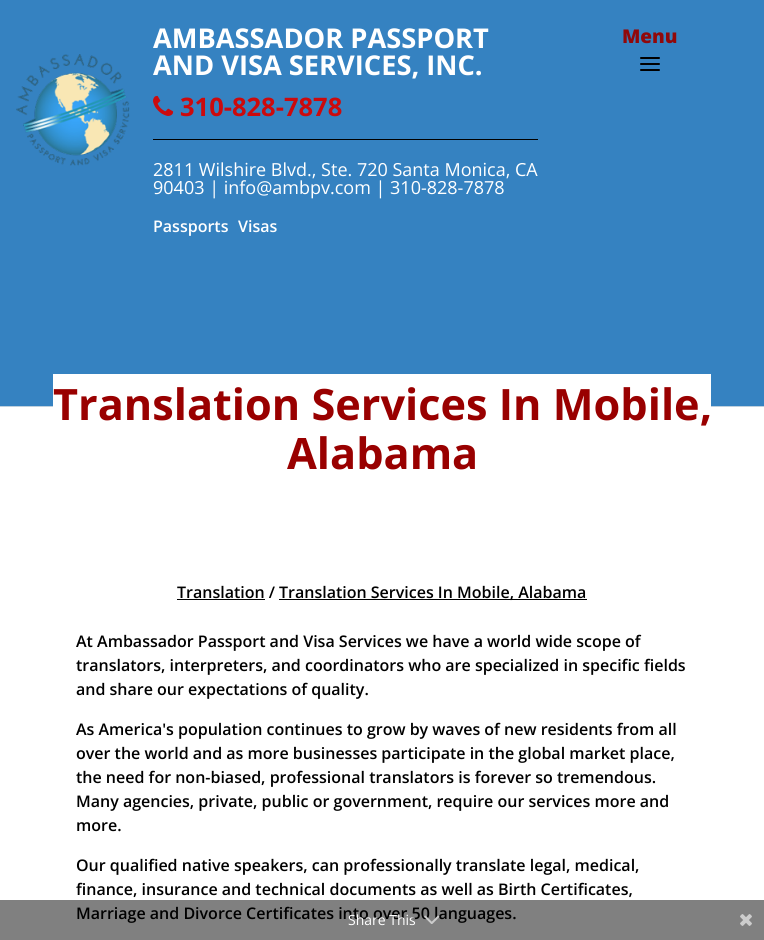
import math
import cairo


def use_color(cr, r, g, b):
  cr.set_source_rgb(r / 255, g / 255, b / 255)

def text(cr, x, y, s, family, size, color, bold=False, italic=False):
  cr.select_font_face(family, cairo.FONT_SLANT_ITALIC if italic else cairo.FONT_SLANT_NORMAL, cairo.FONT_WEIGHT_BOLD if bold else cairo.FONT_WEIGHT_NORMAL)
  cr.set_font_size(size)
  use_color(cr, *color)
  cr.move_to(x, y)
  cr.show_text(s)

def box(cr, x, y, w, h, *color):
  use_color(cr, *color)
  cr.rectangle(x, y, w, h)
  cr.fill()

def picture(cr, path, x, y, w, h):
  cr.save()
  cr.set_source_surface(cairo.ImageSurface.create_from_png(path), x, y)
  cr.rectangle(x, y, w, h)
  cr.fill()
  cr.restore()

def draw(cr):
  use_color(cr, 53, 130, 193)
  cr.paint()
  picture(cr, "img_01.png", 16, 54, 114, 112)
  box(cr, 153, 139, 385, 1, 0, 0, 0)
  picture(cr, "img_02.png", 153, 95, 21, 21)
  picture(cr, "img_03.png", 640, 57, 20, 14)
  box(cr, 0, 407, 764, 493, 255, 255, 255)
  box(cr, 0, 900, 764, 40, 128, 128, 128)
  box(cr, 0, 406, 764, 1, 190, 208, 222)
  box(cr, 53, 374, 658, 33, 255, 255, 255)
  box(cr, 177, 599, 88, 1, 0, 0, 0)
  box(cr, 279, 599, 308, 1, 0, 0, 0)
  picture(cr, "img_05.png", 740, 914, 12, 12)
  text(cr, 153, 48, "AMBASSADOR PASSPORT", "Open Sans", 27.25, (255, 255, 255), bold=True)
  text(cr, 153, 75, "AND VISA SERVICES, INC.", "Open Sans", 27.25, (255, 255, 255), bold=True)
  text(cr, 180, 116, "310-828-7878", "Open Sans", 25.5, (204, 10, 13), bold=True)
  text(cr, 153, 176, "2811 Wilshire Blvd., Ste. 720 Santa Monica, CA", "Open Sans", 18, (255, 255, 255))
  text(cr, 153, 194, "90403 | info@ambpv.com | 310-828-7878", "Open Sans", 18, (255, 255, 255))
  text(cr, 153, 232, "Passports", "Open Sans SemiBold", 16, (255, 255, 255))
  text(cr, 238, 232, "Visas", "Open Sans SemiBold", 16, (255, 255, 255))
  text(cr, 622, 43, "Menu", "Open Sans ExtraBold", 19, (145, 8, 10))
  text(cr, 53, 420, "Translation Services In Mobile,", "Open Sans", 43.25, (153, 0, 0), bold=True)
  text(cr, 287, 469, "Alabama", "Open Sans", 43.25, (153, 0, 0), bold=True)
  text(cr, 177, 598, "Translation /", "Open Sans SemiBold", 16, (0, 0, 0))
  text(cr, 279, 598, "Translation Services In Mobile, Alabama", "Open Sans SemiBold", 16, (0, 0, 0))
  text(cr, 76, 647, "At Ambassador Passport and Visa Services we have a world wide scope of", "Open Sans SemiBold", 16, (0, 0, 0))
  text(cr, 76, 671, "translators, interpreters, and coordinators who are specialized in specific fields", "Open Sans SemiBold", 16, (0, 0, 0))
  text(cr, 76, 695, "and share our expectations of quality.", "Open Sans SemiBold", 16, (0, 0, 0))
  text(cr, 76, 735, "As America's population continues to grow by waves of new residents from all", "Open Sans SemiBold", 16, (0, 0, 0))
  text(cr, 76, 759, "over the world and as more businesses participate in the global market place,", "Open Sans SemiBold", 16, (0, 0, 0))
  text(cr, 76, 783, "the need for non-biased, professional translators is forever so tremendous.", "Open Sans SemiBold", 16, (0, 0, 0))
  text(cr, 76, 807, "Many agencies, private, public or government, require our services more and", "Open Sans SemiBold", 16, (0, 0, 0))
  text(cr, 76, 831, "more.", "Open Sans SemiBold", 16, (0, 0, 0))
  text(cr, 76, 871, "Our qualified native speakers, can professionally translate legal, medical,", "Open Sans SemiBold", 16, (0, 0, 0))
  text(cr, 76, 895, "finance, insurance and technical documents as well as Birth Certificates,", "Open Sans SemiBold", 16, (0, 0, 0))
  text(cr, 76, 919, "Marriage and Divorce Certificates into over 50 languages.", "Open Sans SemiBold", 16, (0, 0, 0))
  text(cr, 348, 925, "Share This", "Open Sans", 14, (255, 255, 255))
  picture(cr, "img_04.png", 424, 915, 16, 9)


surface = cairo.ImageSurface(cairo.FORMAT_RGB24, 764, 940)
cr = cairo.Context(surface)
options = cairo.FontOptions()
options.set_hint_metrics(cairo.HINT_METRICS_OFF)
options.set_hint_style(cairo.HINT_STYLE_NONE)
cr.set_font_options(options)
cr.set_miter_limit(4)
draw(cr)
surface.write_to_png("out.png")
